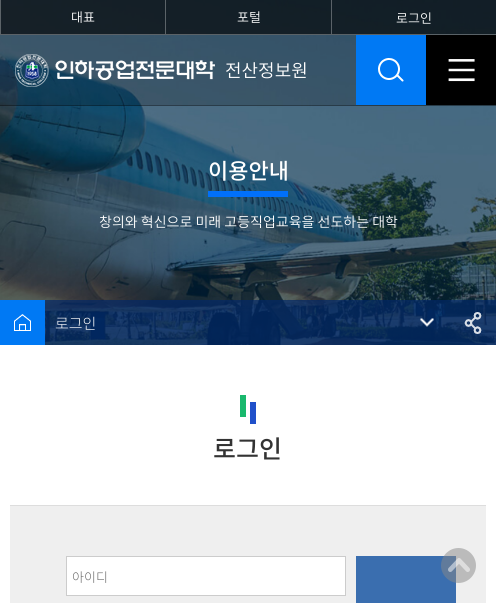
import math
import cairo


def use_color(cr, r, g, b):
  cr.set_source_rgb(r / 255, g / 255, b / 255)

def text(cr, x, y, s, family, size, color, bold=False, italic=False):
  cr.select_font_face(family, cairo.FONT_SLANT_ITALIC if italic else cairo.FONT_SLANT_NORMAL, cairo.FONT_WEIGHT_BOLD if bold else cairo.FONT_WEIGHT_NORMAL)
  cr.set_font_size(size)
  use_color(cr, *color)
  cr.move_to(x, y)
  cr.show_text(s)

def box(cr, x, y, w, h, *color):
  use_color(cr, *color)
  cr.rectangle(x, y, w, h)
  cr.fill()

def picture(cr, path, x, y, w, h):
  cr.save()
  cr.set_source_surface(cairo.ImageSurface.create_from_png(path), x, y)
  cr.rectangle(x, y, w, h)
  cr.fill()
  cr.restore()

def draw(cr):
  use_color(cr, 255, 255, 255)
  cr.paint()
  picture(cr, "img_04.png", 0, 0, 496, 345)
  cr.set_source_rgba(0, 0, 0, 0.7)
  cr.rectangle(0, 0, 496, 35)
  cr.fill()
  cr.set_source_rgba(1, 1, 1, 0.3)
  cr.rectangle(0, 34, 496, 1)
  cr.fill()
  box(cr, 0, 0, 1, 34, 92, 99, 104)
  box(cr, 165, 0, 1, 34, 91, 99, 104)
  box(cr, 331, 0, 1, 34, 90, 98, 104)
  cr.set_source_rgba(0, 0, 0, 0.2)
  cr.rectangle(0, 35, 496, 71)
  cr.fill()
  cr.set_source_rgba(0, 0, 0, 0.3)
  cr.rectangle(0, 105, 496, 1)
  cr.fill()
  picture(cr, "img_01.png", 15, 54, 200, 33)
  box(cr, 356, 35, 70, 70, 0, 121, 244)
  picture(cr, "img_02.png", 378, 58, 26, 24)
  box(cr, 426, 35, 70, 70, 0, 0, 0)
  picture(cr, "img_03.png", 448, 59, 27, 23)
  box(cr, 208, 191, 80, 6, 1, 112, 250)
  cr.set_source_rgba(0.008, 0.161, 0.408, 0.7)
  cr.rectangle(45, 300, 451, 45)
  cr.fill()
  box(cr, 0, 300, 45, 45, 0, 121, 244)
  picture(cr, "img_05.png", 14, 314, 17, 17)
  picture(cr, "img_06.png", 420, 318, 14, 9)
  picture(cr, "img_07.png", 464, 312, 18, 22)
  picture(cr, "img_08.png", 240, 395, 16, 29)
  box(cr, 10, 506, 476, 97, 239, 239, 239)
  box(cr, 10, 505, 476, 1, 221, 221, 221)
  use_color(cr, 255, 255, 255)
  cr.rectangle(66.5, 556.5, 279, 39)
  cr.fill_preserve()
  use_color(cr, 204, 204, 204)
  cr.set_line_width(1)
  cr.stroke()
  box(cr, 356, 556, 100, 47, 58, 110, 175)
  cr.set_source_rgba(0.533, 0.533, 0.533, 0.5)
  cr.new_path()
  cr.move_to(441, 565.5)
  cr.curve_to(441, 556, 449, 548, 458.5, 548)
  cr.curve_to(468, 548, 476, 556, 476, 565.5)
  cr.curve_to(476, 575, 468, 583, 458.5, 583)
  cr.curve_to(449, 583, 441, 575, 441, 565.5)
  cr.close_path()
  cr.fill()
  picture(cr, "img_09.png", 448, 558, 22, 14)
  text(cr, 71, 22, "대표", "Noto Sans KR Light", 13, (255, 255, 255))
  text(cr, 237, 22, "포털", "Noto Sans KR Light", 13, (255, 255, 255))
  text(cr, 396, 23, "로그인", "Noto Sans KR Light", 13, (255, 255, 255))
  text(cr, 225, 77, "전산정보원", "Noto Sans KR Light", 18, (255, 255, 255))
  text(cr, 208, 179, "이용안내", "Noto Sans KR Medium", 22, (255, 255, 255))
  text(cr, 99, 227, "창의와 혁신으로 미래 고등직업교육을 선도하는 대학", "Noto Sans KR Light", 14, (255, 255, 255))
  text(cr, 55, 329, "로그인", "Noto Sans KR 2 Light", 15, (255, 255, 255))
  text(cr, 213, 458, "로그인", "Noto Sans KR Medium", 25, (51, 51, 51))
  text(cr, 72, 582, "아이디", "Noto Sans KR 2 Light", 13, (102, 102, 102))


surface = cairo.ImageSurface(cairo.FORMAT_RGB24, 496, 603)
cr = cairo.Context(surface)
options = cairo.FontOptions()
options.set_hint_metrics(cairo.HINT_METRICS_OFF)
options.set_hint_style(cairo.HINT_STYLE_NONE)
cr.set_font_options(options)
cr.set_miter_limit(4)
draw(cr)
surface.write_to_png("out.png")
